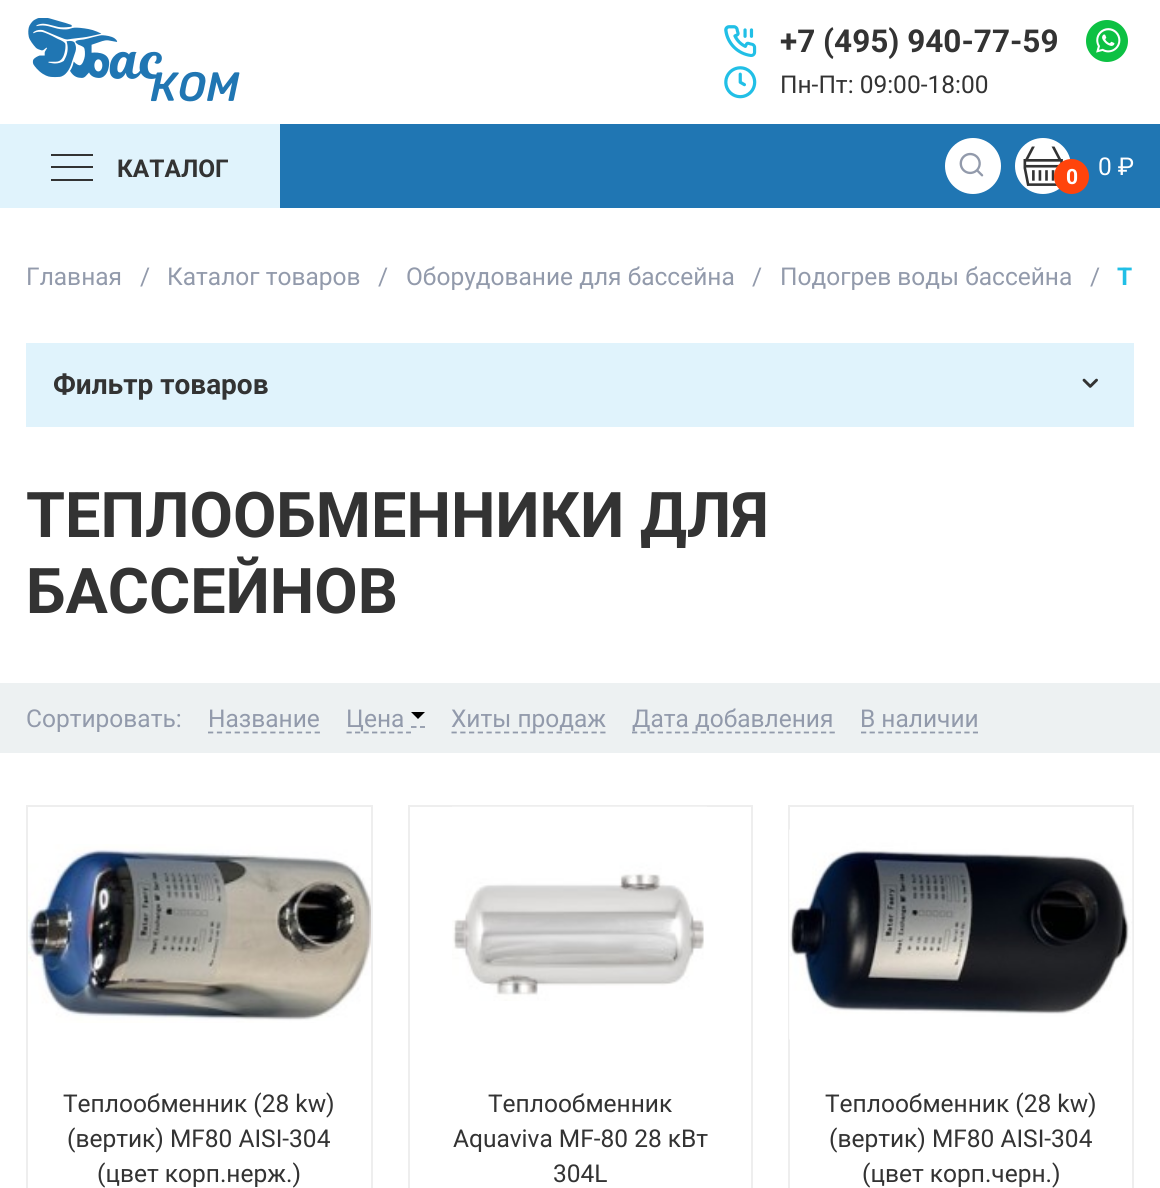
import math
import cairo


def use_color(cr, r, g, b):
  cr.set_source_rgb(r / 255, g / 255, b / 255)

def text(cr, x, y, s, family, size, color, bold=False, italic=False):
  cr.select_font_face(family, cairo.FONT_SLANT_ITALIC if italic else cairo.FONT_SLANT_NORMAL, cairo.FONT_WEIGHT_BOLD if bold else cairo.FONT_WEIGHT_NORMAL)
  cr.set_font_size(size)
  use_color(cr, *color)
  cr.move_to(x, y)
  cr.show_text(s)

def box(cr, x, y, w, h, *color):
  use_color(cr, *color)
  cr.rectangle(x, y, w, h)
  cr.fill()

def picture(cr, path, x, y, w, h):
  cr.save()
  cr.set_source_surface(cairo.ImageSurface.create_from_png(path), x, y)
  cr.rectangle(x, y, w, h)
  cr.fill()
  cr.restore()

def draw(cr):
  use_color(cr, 255, 255, 255)
  cr.paint()
  picture(cr, "img_01.png", 28, 18, 212, 84)
  picture(cr, "img_02.png", 724, 25, 33, 32)
  picture(cr, "img_03.png", 1086, 20, 42, 42)
  picture(cr, "img_04.png", 724, 66, 33, 33)
  box(cr, 280, 124, 880, 84, 32, 118, 179)
  box(cr, 0, 124, 280, 84, 224, 243, 252)
  box(cr, 51, 154, 42, 2, 51, 51, 51)
  box(cr, 51, 166, 42, 2, 51, 51, 51)
  box(cr, 51, 179, 42, 2, 51, 51, 51)
  use_color(cr, 255, 255, 255)
  cr.arc(973, 166, 28, 0, 2 * math.pi)
  cr.fill()
  picture(cr, "img_05.png", 959, 152, 25, 25)
  cr.arc(1043, 166, 28, 0, 2 * math.pi)
  cr.fill()
  picture(cr, "img_06.png", 1023, 146, 40, 40)
  use_color(cr, 255, 68, 11)
  cr.arc(1071.5, 176.5, 17.5, 0, 2 * math.pi)
  cr.fill()
  box(cr, 26, 343, 1108, 84, 224, 243, 252)
  picture(cr, "img_07.png", 1082, 378, 16, 10)
  box(cr, 0, 683, 1160, 70, 237, 241, 242)
  cr.new_path()
  cr.move_to(208, 732.5)
  cr.line_to(320, 732.5)
  use_color(cr, 146, 154, 171)
  cr.set_line_width(1.8)
  cr.set_dash([5.25, 3.64])
  cr.stroke()
  cr.new_path()
  cr.move_to(346.5, 732.5)
  cr.line_to(411, 732.5)
  cr.set_dash([5.25, 3.26])
  cr.stroke()
  cr.new_path()
  cr.move_to(411, 727)
  cr.line_to(416.5, 727)
  cr.move_to(420, 727)
  cr.line_to(425, 727)
  cr.set_dash([])
  cr.stroke()
  use_color(cr, 0, 0, 0)
  cr.new_path()
  cr.move_to(411, 712)
  cr.line_to(425, 712)
  cr.line_to(418, 719)
  cr.close_path()
  cr.fill()
  cr.new_path()
  cr.move_to(451.5, 732.5)
  cr.line_to(605.5, 732.5)
  use_color(cr, 146, 154, 171)
  cr.set_dash([5.25, 3.5])
  cr.stroke()
  cr.new_path()
  cr.move_to(632, 732.5)
  cr.line_to(835, 732.5)
  cr.set_dash([5.25, 3.34])
  cr.stroke()
  cr.new_path()
  cr.move_to(861, 732.5)
  cr.line_to(978, 732.5)
  cr.set_dash([5.25, 3.36])
  cr.stroke()
  cr.rectangle(27, 806, 345, 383)
  use_color(cr, 238, 238, 238)
  cr.set_line_width(2)
  cr.set_dash([])
  cr.stroke()
  picture(cr, "img_08.png", 28, 844, 343, 179)
  cr.rectangle(409, 806, 343, 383)
  cr.stroke()
  picture(cr, "img_09.png", 452, 806, 255, 195)
  cr.rectangle(789, 806, 344, 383)
  cr.stroke()
  picture(cr, "img_10.png", 789, 829, 344, 211)
  text(cr, 780, 52, "+7 (495) 940-77-59", "Roboto", 31.5, (51, 51, 51), bold=True)
  text(cr, 780, 93, "Пн-Пт: 09:00-18:00", "Roboto", 24.5, (51, 51, 51))
  text(cr, 117, 177, "КАТАЛОГ", "Roboto", 24.5, (51, 51, 51), bold=True)
  text(cr, 1066, 184, "0", "Roboto", 21, (255, 255, 255), bold=True)
  text(cr, 1098, 175, "0 ₽", "Roboto", 24.5, (255, 255, 255))
  text(cr, 26, 285, "Главная", "Roboto", 24.5, (146, 154, 171))
  text(cr, 140, 285, "/", "Roboto", 24.5, (146, 154, 171))
  text(cr, 167, 285, "Каталог товаров", "Roboto", 24.5, (146, 154, 171))
  text(cr, 378, 285, "/", "Roboto", 24.5, (146, 154, 171))
  text(cr, 406, 285, "Оборудование для бассейна", "Roboto", 24.5, (146, 154, 171))
  text(cr, 752, 285, "/", "Roboto", 24.5, (146, 154, 171))
  text(cr, 780, 285, "Подогрев воды бассейна", "Roboto", 24.5, (146, 154, 171))
  text(cr, 1090, 285, "/", "Roboto", 24.5, (146, 154, 171))
  text(cr, 1117, 285, "Т", "Roboto", 24.5, (33, 191, 230), bold=True)
  text(cr, 53, 394, "Фильтр товаров", "Roboto", 28, (51, 51, 51), bold=True)
  text(cr, 26, 537, "ТЕПЛООБМЕННИКИ ДЛЯ", "Roboto", 63, (51, 51, 51), bold=True)
  text(cr, 26, 613, "БАССЕЙНОВ", "Roboto", 63, (51, 51, 51), bold=True)
  text(cr, 26, 727, "Сортировать:", "Roboto", 24.5, (146, 154, 171))
  text(cr, 208, 727, "Название", "Roboto", 24.5, (146, 154, 171))
  text(cr, 346, 727, "Цена", "Roboto", 24.5, (146, 154, 171))
  text(cr, 451, 727, "Хиты продаж", "Roboto", 24.5, (146, 154, 171))
  text(cr, 632, 727, "Дата добавления", "Roboto", 24.5, (146, 154, 171))
  text(cr, 860, 727, "В наличии", "Roboto", 24.5, (146, 154, 171))
  text(cr, 63, 1112, "Теплообменник (28 kw)", "Roboto", 24.5, (51, 51, 51))
  text(cr, 67, 1147, "(вертик) МF80 AISI-304", "Roboto", 24.5, (51, 51, 51))
  text(cr, 97, 1182, "(цвет корп.нерж.)", "Roboto", 24.5, (51, 51, 51))
  text(cr, 488, 1112, "Теплообменник", "Roboto", 24.5, (51, 51, 51))
  text(cr, 453, 1147, "Aquaviva MF-80 28 кВт", "Roboto", 24.5, (51, 51, 51))
  text(cr, 553, 1182, "304L", "Roboto", 24.5, (51, 51, 51))
  text(cr, 825, 1112, "Теплообменник (28 kw)", "Roboto", 24.5, (51, 51, 51))
  text(cr, 829, 1147, "(вертик) МF80 AISI-304", "Roboto", 24.5, (51, 51, 51))
  text(cr, 862, 1182, "(цвет корп.черн.)", "Roboto", 24.5, (51, 51, 51))


surface = cairo.ImageSurface(cairo.FORMAT_RGB24, 1160, 1188)
cr = cairo.Context(surface)
options = cairo.FontOptions()
options.set_hint_metrics(cairo.HINT_METRICS_OFF)
options.set_hint_style(cairo.HINT_STYLE_NONE)
cr.set_font_options(options)
cr.set_miter_limit(4)
draw(cr)
surface.write_to_png("out.png")
